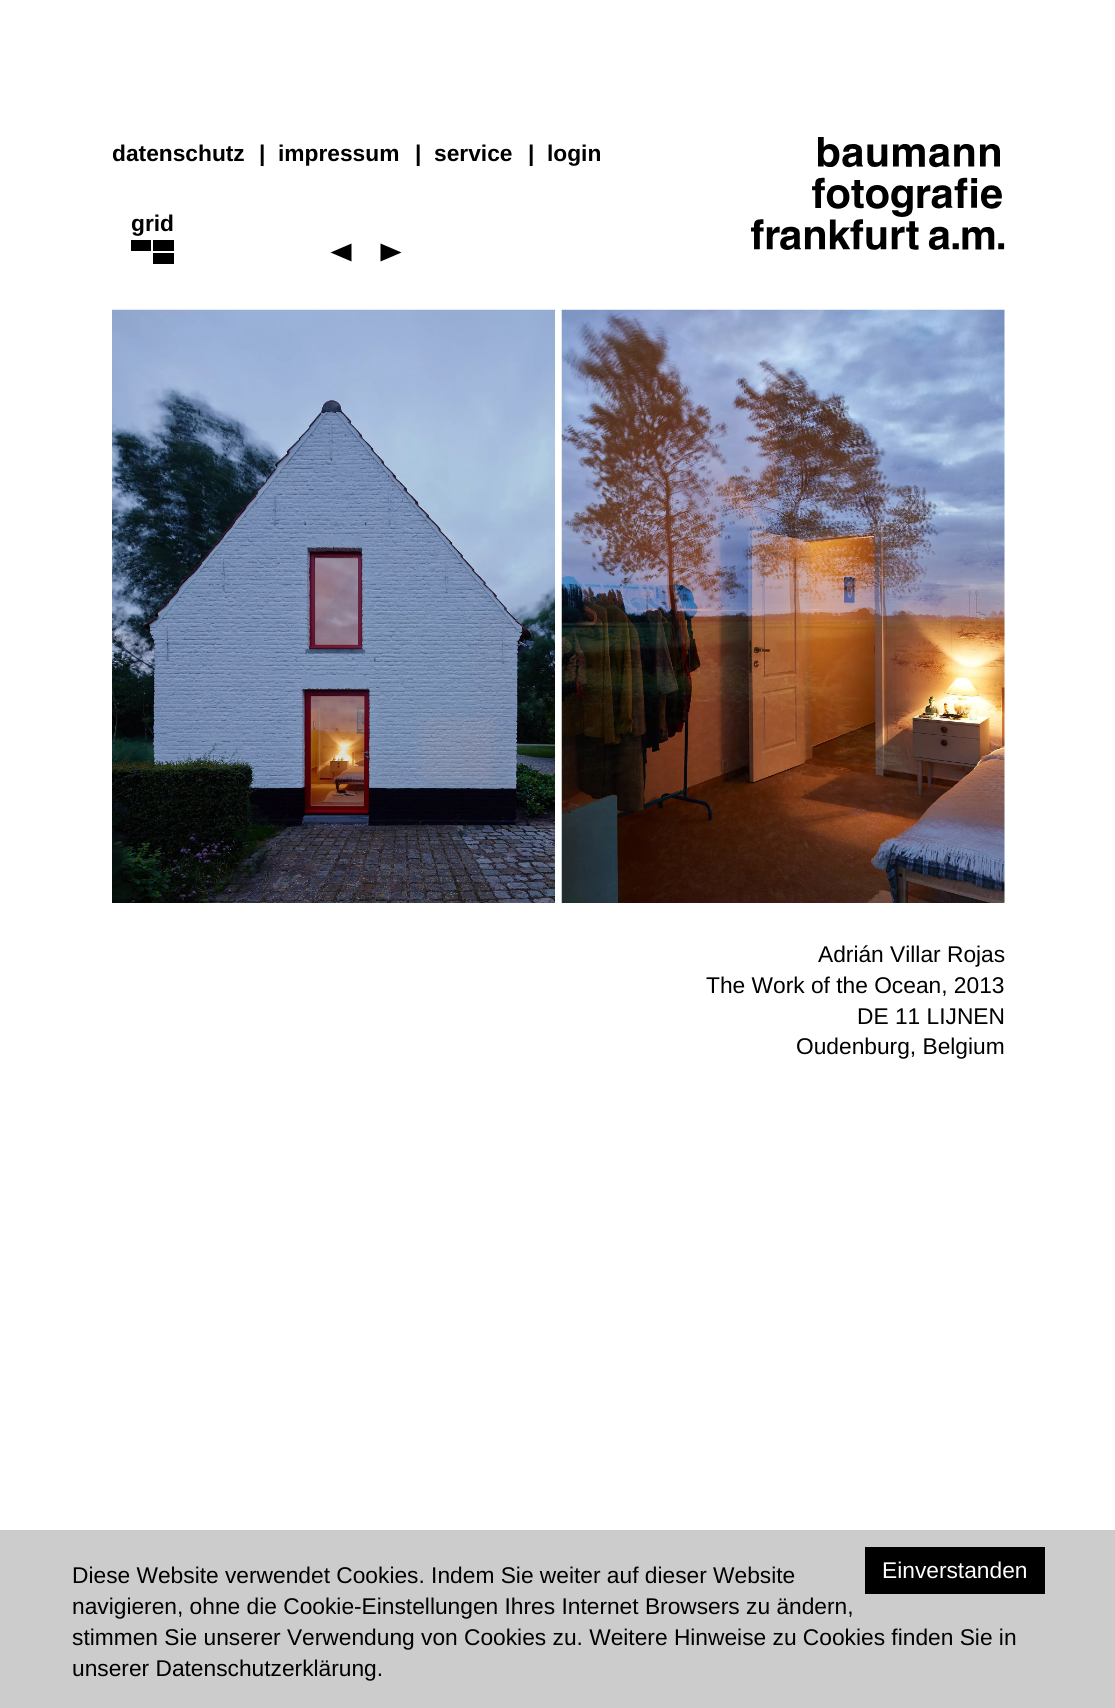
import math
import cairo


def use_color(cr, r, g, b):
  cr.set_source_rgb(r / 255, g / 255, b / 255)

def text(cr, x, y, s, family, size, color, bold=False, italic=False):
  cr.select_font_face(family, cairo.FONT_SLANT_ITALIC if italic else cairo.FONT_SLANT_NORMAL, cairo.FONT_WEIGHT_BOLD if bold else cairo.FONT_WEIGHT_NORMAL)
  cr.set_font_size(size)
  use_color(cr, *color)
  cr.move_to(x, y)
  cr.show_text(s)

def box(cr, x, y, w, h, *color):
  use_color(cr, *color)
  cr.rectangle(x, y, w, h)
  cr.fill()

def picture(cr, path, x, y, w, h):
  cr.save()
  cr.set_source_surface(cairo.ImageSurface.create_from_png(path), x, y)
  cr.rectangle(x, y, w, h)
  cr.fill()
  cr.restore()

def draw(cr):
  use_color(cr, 255, 255, 255)
  cr.paint()
  use_color(cr, 0, 0, 0)
  cr.new_path()
  cr.move_to(131, 240)
  cr.line_to(131, 251)
  cr.line_to(151, 251)
  cr.line_to(151, 240)
  cr.close_path()
  cr.move_to(153, 240)
  cr.line_to(153, 251)
  cr.line_to(174, 251)
  cr.line_to(174, 240)
  cr.close_path()
  cr.move_to(153, 253)
  cr.line_to(153, 264)
  cr.line_to(174, 264)
  cr.line_to(174, 253)
  cr.close_path()
  cr.fill()
  cr.new_path()
  cr.move_to(351.5, 243.5)
  cr.line_to(330.5, 252.5)
  cr.line_to(351.5, 261.5)
  cr.close_path()
  cr.fill()
  cr.new_path()
  cr.move_to(380.5, 261.5)
  cr.line_to(401.5, 252.5)
  cr.line_to(380.5, 243.5)
  cr.close_path()
  cr.fill()
  picture(cr, "img_01.png", 751, 137, 254, 113)
  picture(cr, "img_02.png", 112, 309, 893, 594)
  box(cr, 0, 1530, 1115, 178, 204, 204, 204)
  box(cr, 865, 1547, 180, 47, 0, 0, 0)
  text(cr, 112, 161, "datenschutz", "Liberation Sans", 22.75, (0, 0, 0), bold=True)
  text(cr, 259, 161, "|", "Liberation Sans", 22.75, (0, 0, 0), bold=True)
  text(cr, 278, 161, "impressum", "Liberation Sans", 22.75, (0, 0, 0), bold=True)
  text(cr, 415, 161, "|", "Liberation Sans", 22.75, (0, 0, 0), bold=True)
  text(cr, 434, 161, "service", "Liberation Sans", 22.75, (0, 0, 0), bold=True)
  text(cr, 528, 161, "|", "Liberation Sans", 22.75, (0, 0, 0), bold=True)
  text(cr, 547, 161, "login", "Liberation Sans", 22.75, (0, 0, 0), bold=True)
  text(cr, 131, 231, "grid", "Liberation Sans", 22.75, (0, 0, 0), bold=True)
  text(cr, 818, 962, "Adrián Villar Rojas", "Liberation Sans", 22.75, (0, 0, 0))
  text(cr, 706, 993, "The Work of the Ocean, 2013", "Liberation Sans", 22.75, (0, 0, 0))
  text(cr, 857, 1024, "DE 11 LIJNEN", "Liberation Sans", 22.75, (0, 0, 0))
  text(cr, 796, 1054, "Oudenburg, Belgium", "Liberation Sans", 22.75, (0, 0, 0))
  text(cr, 882, 1578, "Einverstanden", "Liberation Sans", 22.75, (255, 255, 255))
  text(cr, 72, 1583, "Diese Website verwendet Cookies. Indem Sie weiter auf dieser Website", "Liberation Sans", 22.75, (0, 0, 0))
  text(cr, 72, 1614, "navigieren, ohne die Cookie-Einstellungen Ihres Internet Browsers zu ändern,", "Liberation Sans", 22.75, (0, 0, 0))
  text(cr, 72, 1645, "stimmen Sie unserer Verwendung von Cookies zu. Weitere Hinweise zu Cookies finden Sie in", "Liberation Sans", 22.75, (0, 0, 0))
  text(cr, 72, 1676, "unserer Datenschutzerklärung.", "Liberation Sans", 22.75, (0, 0, 0))


surface = cairo.ImageSurface(cairo.FORMAT_RGB24, 1115, 1708)
cr = cairo.Context(surface)
options = cairo.FontOptions()
options.set_hint_metrics(cairo.HINT_METRICS_OFF)
options.set_hint_style(cairo.HINT_STYLE_NONE)
cr.set_font_options(options)
cr.set_miter_limit(4)
draw(cr)
surface.write_to_png("out.png")
